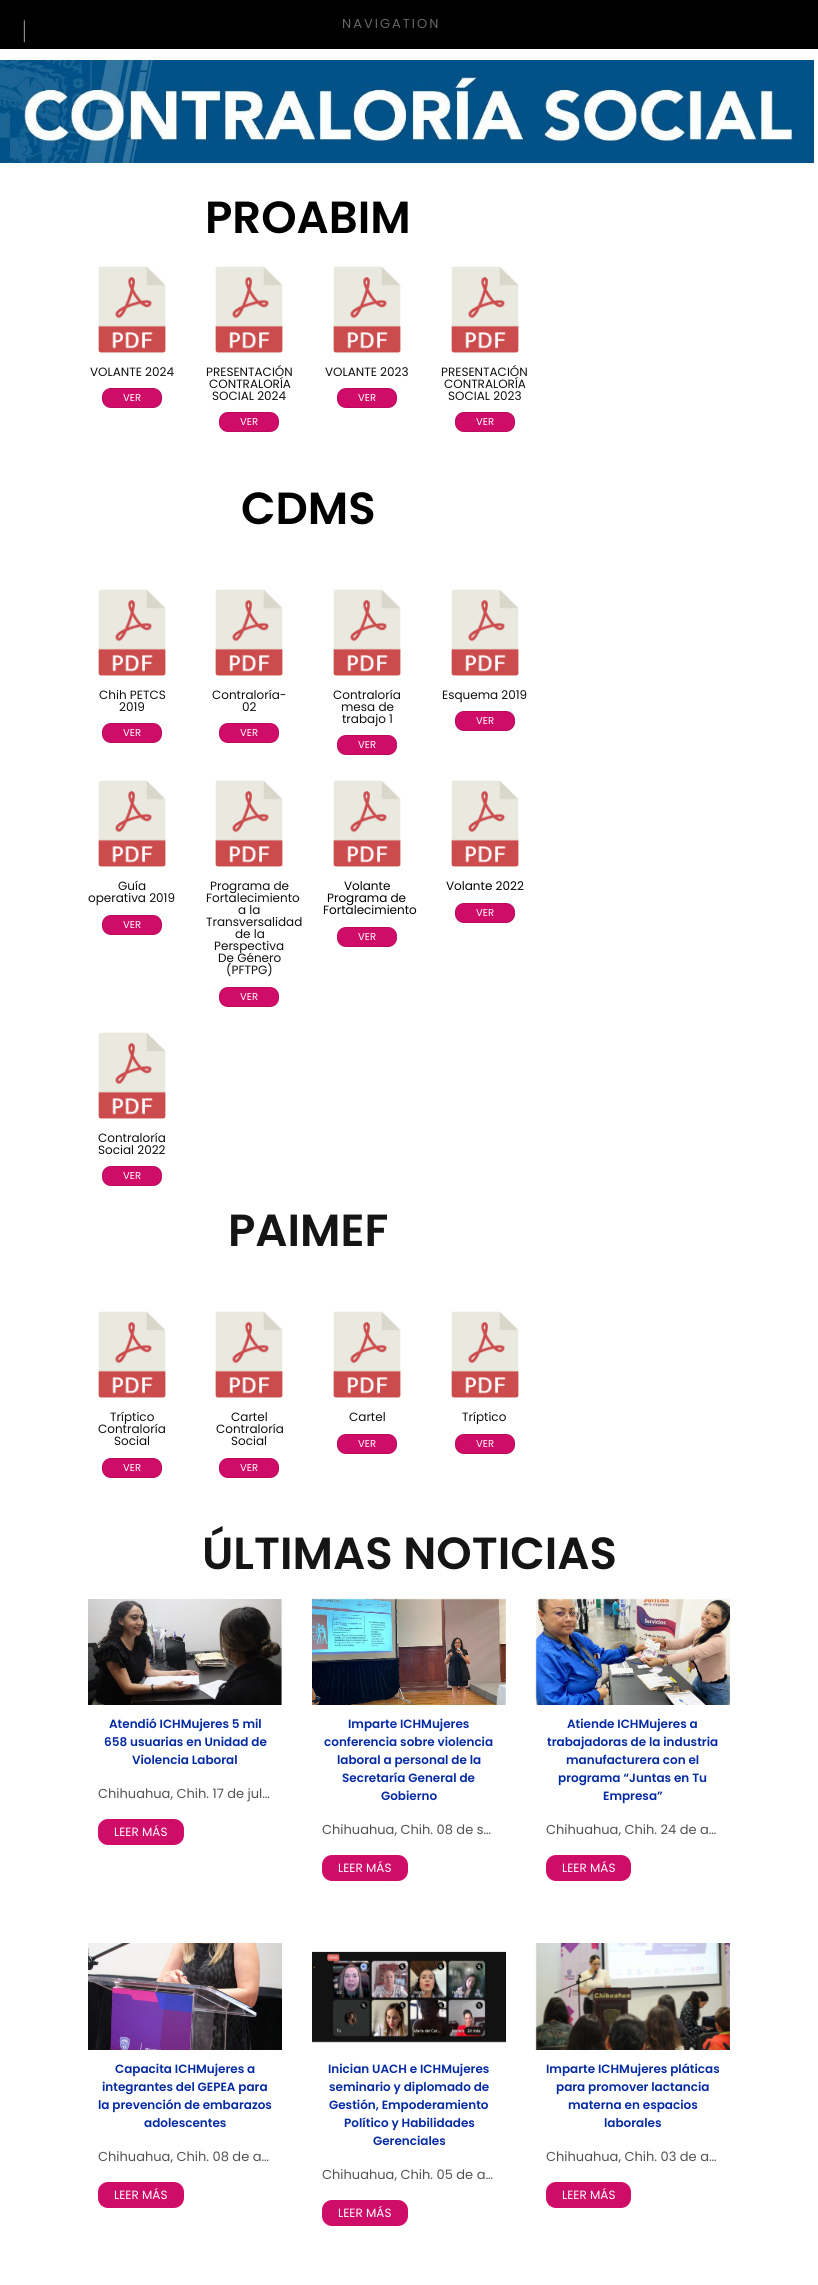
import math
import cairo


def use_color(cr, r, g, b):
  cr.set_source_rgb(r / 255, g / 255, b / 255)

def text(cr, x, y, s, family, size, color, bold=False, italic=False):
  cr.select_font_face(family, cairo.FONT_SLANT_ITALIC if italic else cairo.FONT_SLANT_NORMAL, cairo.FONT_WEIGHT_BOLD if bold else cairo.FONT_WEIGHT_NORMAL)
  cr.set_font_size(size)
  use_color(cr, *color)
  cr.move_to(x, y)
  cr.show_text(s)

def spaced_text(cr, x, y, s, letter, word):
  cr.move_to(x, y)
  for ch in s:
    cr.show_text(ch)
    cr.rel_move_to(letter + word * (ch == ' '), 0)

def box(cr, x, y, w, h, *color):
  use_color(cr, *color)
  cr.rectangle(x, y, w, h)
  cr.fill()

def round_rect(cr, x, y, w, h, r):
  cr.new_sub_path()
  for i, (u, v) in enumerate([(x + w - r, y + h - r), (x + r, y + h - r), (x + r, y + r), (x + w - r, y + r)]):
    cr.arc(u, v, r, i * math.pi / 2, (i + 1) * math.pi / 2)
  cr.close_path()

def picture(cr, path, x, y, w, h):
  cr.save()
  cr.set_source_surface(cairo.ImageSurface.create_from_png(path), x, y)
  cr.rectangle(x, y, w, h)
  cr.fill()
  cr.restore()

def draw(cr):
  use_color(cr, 255, 255, 255)
  cr.paint()
  box(cr, 0, 0, 818, 49, 0, 0, 0)
  picture(cr, "img_01.png", 0, 60, 814, 103)
  picture(cr, "img_02.png", 98, 266, 68, 87)
  use_color(cr, 207, 12, 104)
  round_rect(cr, 102, 388, 60, 20, 9)
  cr.fill()
  round_rect(cr, 102.5, 388.5, 59, 19, 8.5)
  cr.set_source_rgba(0, 0, 0, 0.1)
  cr.set_line_width(1)
  cr.stroke()
  picture(cr, "img_02.png", 215, 266, 68, 87)
  use_color(cr, 207, 12, 104)
  round_rect(cr, 219, 412, 60, 20, 9)
  cr.fill()
  round_rect(cr, 219.5, 412.5, 59, 19, 8.5)
  cr.set_source_rgba(0, 0, 0, 0.1)
  cr.stroke()
  picture(cr, "img_02.png", 333, 266, 68, 87)
  use_color(cr, 207, 12, 104)
  round_rect(cr, 337, 388, 60, 20, 9)
  cr.fill()
  round_rect(cr, 337.5, 388.5, 59, 19, 8.5)
  cr.set_source_rgba(0, 0, 0, 0.1)
  cr.stroke()
  picture(cr, "img_03.png", 451, 266, 68, 87)
  use_color(cr, 207, 12, 104)
  round_rect(cr, 455, 412, 60, 20, 9)
  cr.fill()
  round_rect(cr, 455.5, 412.5, 59, 19, 8.5)
  cr.set_source_rgba(0, 0, 0, 0.1)
  cr.stroke()
  picture(cr, "img_02.png", 98, 589, 68, 87)
  use_color(cr, 207, 12, 104)
  round_rect(cr, 102, 723, 60, 20, 9)
  cr.fill()
  round_rect(cr, 102.5, 723.5, 59, 19, 8.5)
  cr.set_source_rgba(0, 0, 0, 0.1)
  cr.stroke()
  picture(cr, "img_02.png", 215, 589, 68, 87)
  use_color(cr, 207, 12, 104)
  round_rect(cr, 219, 723, 60, 20, 9)
  cr.fill()
  round_rect(cr, 219.5, 723.5, 59, 19, 8.5)
  cr.set_source_rgba(0, 0, 0, 0.1)
  cr.stroke()
  picture(cr, "img_02.png", 333, 589, 68, 87)
  use_color(cr, 207, 12, 104)
  round_rect(cr, 337, 735, 60, 20, 9)
  cr.fill()
  round_rect(cr, 337.5, 735.5, 59, 19, 8.5)
  cr.set_source_rgba(0, 0, 0, 0.1)
  cr.stroke()
  picture(cr, "img_03.png", 451, 589, 68, 87)
  use_color(cr, 207, 12, 104)
  round_rect(cr, 455, 711, 60, 20, 9)
  cr.fill()
  round_rect(cr, 455.5, 711.5, 59, 19, 8.5)
  cr.set_source_rgba(0, 0, 0, 0.1)
  cr.stroke()
  picture(cr, "img_02.png", 98, 780, 68, 87)
  use_color(cr, 207, 12, 104)
  round_rect(cr, 102, 915, 60, 20, 9)
  cr.fill()
  round_rect(cr, 102.5, 915.5, 59, 19, 8.5)
  cr.set_source_rgba(0, 0, 0, 0.1)
  cr.stroke()
  picture(cr, "img_02.png", 215, 780, 68, 87)
  use_color(cr, 207, 12, 104)
  round_rect(cr, 219, 987, 60, 20, 9)
  cr.fill()
  round_rect(cr, 219.5, 987.5, 59, 19, 8.5)
  cr.set_source_rgba(0, 0, 0, 0.1)
  cr.stroke()
  picture(cr, "img_02.png", 333, 780, 68, 87)
  use_color(cr, 207, 12, 104)
  round_rect(cr, 337, 927, 60, 20, 9)
  cr.fill()
  round_rect(cr, 337.5, 927.5, 59, 19, 8.5)
  cr.set_source_rgba(0, 0, 0, 0.1)
  cr.stroke()
  picture(cr, "img_03.png", 451, 780, 68, 87)
  use_color(cr, 207, 12, 104)
  round_rect(cr, 455, 903, 60, 20, 9)
  cr.fill()
  round_rect(cr, 455.5, 903.5, 59, 19, 8.5)
  cr.set_source_rgba(0, 0, 0, 0.1)
  cr.stroke()
  picture(cr, "img_04.png", 98, 1032, 68, 87)
  use_color(cr, 207, 12, 104)
  round_rect(cr, 102, 1166, 60, 20, 9)
  cr.fill()
  round_rect(cr, 102.5, 1166.5, 59, 19, 8.5)
  cr.set_source_rgba(0, 0, 0, 0.1)
  cr.stroke()
  picture(cr, "img_04.png", 98, 1311, 68, 87)
  use_color(cr, 207, 12, 104)
  round_rect(cr, 102, 1458, 60, 20, 9)
  cr.fill()
  round_rect(cr, 102.5, 1458.5, 59, 19, 8.5)
  cr.set_source_rgba(0, 0, 0, 0.1)
  cr.stroke()
  picture(cr, "img_04.png", 215, 1311, 68, 87)
  use_color(cr, 207, 12, 104)
  round_rect(cr, 219, 1458, 60, 20, 9)
  cr.fill()
  round_rect(cr, 219.5, 1458.5, 59, 19, 8.5)
  cr.set_source_rgba(0, 0, 0, 0.1)
  cr.stroke()
  picture(cr, "img_04.png", 333, 1311, 68, 87)
  use_color(cr, 207, 12, 104)
  round_rect(cr, 337, 1434, 60, 20, 9)
  cr.fill()
  round_rect(cr, 337.5, 1434.5, 59, 19, 8.5)
  cr.set_source_rgba(0, 0, 0, 0.1)
  cr.stroke()
  picture(cr, "img_05.png", 451, 1311, 68, 87)
  use_color(cr, 207, 12, 104)
  round_rect(cr, 455, 1434, 60, 20, 9)
  cr.fill()
  round_rect(cr, 455.5, 1434.5, 59, 19, 8.5)
  cr.set_source_rgba(0, 0, 0, 0.1)
  cr.stroke()
  picture(cr, "img_06.png", 88, 1599, 194, 106)
  use_color(cr, 207, 12, 104)
  round_rect(cr, 98, 1819, 86, 26, 10)
  cr.fill()
  picture(cr, "img_07.png", 312, 1598, 194, 107)
  round_rect(cr, 322, 1855, 86, 26, 10)
  cr.fill()
  picture(cr, "img_08.png", 535, 1598, 195, 107)
  round_rect(cr, 546, 1855, 85, 26, 10)
  cr.fill()
  picture(cr, "img_09.png", 88, 1943, 194, 107)
  round_rect(cr, 98, 2182, 86, 26, 10)
  cr.fill()
  picture(cr, "img_10.png", 312, 1951, 194, 92)
  round_rect(cr, 322, 2200, 86, 26, 10)
  cr.fill()
  picture(cr, "img_11.png", 535, 1943, 195, 107)
  round_rect(cr, 546, 2182, 85, 26, 10)
  cr.fill()
  text(cr, 22, 37, "|", "Liberation Serif", 24, (136, 136, 136))
  cr.select_font_face("Poppins")
  cr.set_font_size(13)
  use_color(cr, 102, 102, 102)
  spaced_text(cr, 342, 28, "NAVIGATION", 2, 0)
  text(cr, 205, 233, "PROABIM", "Poppins SemiBold", 45, (0, 0, 0))
  text(cr, 90, 376, "VOLANTE 2024", "Poppins", 12, (15, 15, 15))
  text(cr, 123, 401, "VER", "Poppins", 10, (255, 255, 255))
  text(cr, 206, 376, "PRESENTACIÓN", "Poppins", 12, (15, 15, 15))
  text(cr, 209, 388, "CONTRALORÍA", "Poppins", 12, (15, 15, 15))
  text(cr, 212, 400, "SOCIAL 2024", "Poppins", 12, (15, 15, 15))
  text(cr, 240, 425, "VER", "Poppins", 10, (255, 255, 255))
  text(cr, 325, 376, "VOLANTE 2023", "Poppins", 12, (15, 15, 15))
  text(cr, 358, 401, "VER", "Poppins", 10, (255, 255, 255))
  text(cr, 441, 376, "PRESENTACIÓN", "Poppins", 12, (15, 15, 15))
  text(cr, 444, 388, "CONTRALORÍA", "Poppins", 12, (15, 15, 15))
  text(cr, 448, 400, "SOCIAL 2023", "Poppins", 12, (15, 15, 15))
  text(cr, 476, 425, "VER", "Poppins", 10, (255, 255, 255))
  text(cr, 241, 524, "CDMS", "Poppins SemiBold", 45, (0, 0, 0))
  text(cr, 99, 699, "Chih PETCS", "Poppins", 12, (15, 15, 15))
  text(cr, 119, 711, "2019", "Poppins", 12, (15, 15, 15))
  text(cr, 123, 736, "VER", "Poppins", 10, (255, 255, 255))
  text(cr, 212, 699, "Contraloría-", "Poppins", 12, (15, 15, 15))
  text(cr, 242, 711, "02", "Poppins", 12, (15, 15, 15))
  text(cr, 240, 736, "VER", "Poppins", 10, (255, 255, 255))
  text(cr, 333, 699, "Contraloría", "Poppins", 12, (15, 15, 15))
  text(cr, 341, 711, "mesa de", "Poppins", 12, (15, 15, 15))
  text(cr, 342, 723, "trabajo 1", "Poppins", 12, (15, 15, 15))
  text(cr, 358, 748, "VER", "Poppins", 10, (255, 255, 255))
  text(cr, 442, 699, "Esquema 2019", "Poppins", 12, (15, 15, 15))
  text(cr, 476, 724, "VER", "Poppins", 10, (255, 255, 255))
  text(cr, 118, 890, "Guía", "Poppins", 12, (15, 15, 15))
  text(cr, 88, 902, "operativa 2019", "Poppins", 12, (15, 15, 15))
  text(cr, 123, 928, "VER", "Poppins", 10, (255, 255, 255))
  text(cr, 210, 890, "Programa de", "Poppins", 12, (15, 15, 15))
  text(cr, 206, 902, "Fortalecimiento", "Poppins", 12, (15, 15, 15))
  text(cr, 238, 914, "a la", "Poppins", 12, (15, 15, 15))
  text(cr, 206, 926, "Transversalidad", "Poppins", 12, (15, 15, 15))
  text(cr, 235, 938, "de la", "Poppins", 12, (15, 15, 15))
  text(cr, 214, 950, "Perspectiva", "Poppins", 12, (15, 15, 15))
  text(cr, 218, 962, "De Género", "Poppins", 12, (15, 15, 15))
  text(cr, 226, 974, "(PFTPG)", "Poppins", 12, (15, 15, 15))
  text(cr, 240, 1000, "VER", "Poppins", 10, (255, 255, 255))
  text(cr, 344, 890, "Volante", "Poppins", 12, (0, 0, 0))
  text(cr, 327, 902, "Programa de", "Poppins", 12, (0, 0, 0))
  text(cr, 323, 914, "Fortalecimiento", "Poppins", 12, (0, 0, 0))
  text(cr, 358, 940, "VER", "Poppins", 10, (255, 255, 255))
  text(cr, 446, 890, "Volante 2022", "Poppins", 12, (0, 0, 0))
  text(cr, 476, 916, "VER", "Poppins", 10, (255, 255, 255))
  text(cr, 98, 1142, "Contraloría", "Poppins", 12, (15, 15, 15))
  text(cr, 98, 1154, "Social 2022", "Poppins", 12, (15, 15, 15))
  text(cr, 123, 1179, "VER", "Poppins", 10, (255, 255, 255))
  text(cr, 228, 1246, "PAIMEF", "Poppins SemiBold", 45, (21, 21, 21))
  text(cr, 110, 1421, "Tríptico", "Poppins", 12, (15, 15, 15))
  text(cr, 98, 1433, "Contraloría", "Poppins", 12, (15, 15, 15))
  text(cr, 114, 1445, "Social", "Poppins", 12, (15, 15, 15))
  text(cr, 123, 1471, "VER", "Poppins", 10, (255, 255, 255))
  text(cr, 231, 1421, "Cartel", "Poppins", 12, (15, 15, 15))
  text(cr, 216, 1433, "Contraloría", "Poppins", 12, (15, 15, 15))
  text(cr, 231, 1445, "Social", "Poppins", 12, (15, 15, 15))
  text(cr, 240, 1471, "VER", "Poppins", 10, (255, 255, 255))
  text(cr, 349, 1421, "Cartel", "Poppins", 12, (15, 15, 15))
  text(cr, 358, 1447, "VER", "Poppins", 10, (255, 255, 255))
  text(cr, 462, 1421, "Tríptico", "Poppins", 12, (15, 15, 15))
  text(cr, 476, 1447, "VER", "Poppins", 10, (255, 255, 255))
  text(cr, 202, 1569, "ÚLTIMAS NOTICIAS", "Poppins SemiBold", 45, (21, 21, 21))
  text(cr, 109, 1728, "Atendió ICHMujeres 5 mil", "Poppins SemiBold", 12, (5, 43, 164))
  text(cr, 104, 1746, "658 usuarias en Unidad de", "Poppins SemiBold", 12, (5, 43, 164))
  text(cr, 132, 1764, "Violencia Laboral", "Poppins SemiBold", 12, (5, 43, 164))
  text(cr, 98, 1798, "Chihuahua, Chih. 17 de jul…", "Poppins", 13, (82, 82, 82))
  text(cr, 114, 1836, "LEER MÁS", "Poppins", 12, (255, 255, 255))
  text(cr, 348, 1728, "Imparte ICHMujeres", "Poppins SemiBold", 12, (5, 43, 164))
  text(cr, 324, 1746, "conferencia sobre violencia", "Poppins SemiBold", 12, (5, 43, 164))
  text(cr, 337, 1764, "laboral a personal de la", "Poppins SemiBold", 12, (5, 43, 164))
  text(cr, 342, 1782, "Secretaría General de", "Poppins SemiBold", 12, (5, 43, 164))
  text(cr, 381, 1800, "Gobierno", "Poppins SemiBold", 12, (5, 43, 164))
  text(cr, 322, 1834, "Chihuahua, Chih. 08 de s…", "Poppins", 13, (82, 82, 82))
  text(cr, 338, 1872, "LEER MÁS", "Poppins", 12, (255, 255, 255))
  text(cr, 567, 1728, "Atiende ICHMujeres a", "Poppins SemiBold", 12, (5, 43, 164))
  text(cr, 547, 1746, "trabajadoras de la industria", "Poppins SemiBold", 12, (5, 43, 164))
  text(cr, 566, 1764, "manufacturera con el", "Poppins SemiBold", 12, (5, 43, 164))
  text(cr, 558, 1782, "programa “Juntas en Tu", "Poppins SemiBold", 12, (5, 43, 164))
  text(cr, 603, 1800, "Empresa”", "Poppins SemiBold", 12, (5, 43, 164))
  text(cr, 546, 1834, "Chihuahua, Chih. 24 de a…", "Poppins", 13, (82, 82, 82))
  text(cr, 562, 1872, "LEER MÁS", "Poppins", 12, (255, 255, 255))
  text(cr, 115, 2073, "Capacita ICHMujeres a", "Poppins SemiBold", 12, (5, 43, 164))
  text(cr, 102, 2091, "integrantes del GEPEA para", "Poppins SemiBold", 12, (5, 43, 164))
  text(cr, 98, 2109, "la prevención de embarazos", "Poppins SemiBold", 12, (5, 43, 164))
  text(cr, 144, 2127, "adolescentes", "Poppins SemiBold", 12, (5, 43, 164))
  text(cr, 98, 2161, "Chihuahua, Chih. 08 de a…", "Poppins", 13, (82, 82, 82))
  text(cr, 114, 2199, "LEER MÁS", "Poppins", 12, (255, 255, 255))
  text(cr, 328, 2073, "Inician UACH e ICHMujeres", "Poppins SemiBold", 12, (5, 43, 164))
  text(cr, 329, 2091, "seminario y diplomado de", "Poppins SemiBold", 12, (5, 43, 164))
  text(cr, 329, 2109, "Gestión, Empoderamiento", "Poppins SemiBold", 12, (5, 43, 164))
  text(cr, 344, 2127, "Político y Habilidades", "Poppins SemiBold", 12, (5, 43, 164))
  text(cr, 373, 2145, "Gerenciales", "Poppins SemiBold", 12, (5, 43, 164))
  text(cr, 322, 2179, "Chihuahua, Chih. 05 de a…", "Poppins", 13, (82, 82, 82))
  text(cr, 338, 2217, "LEER MÁS", "Poppins", 12, (255, 255, 255))
  text(cr, 546, 2073, "Imparte ICHMujeres pláticas", "Poppins SemiBold", 12, (5, 43, 164))
  text(cr, 556, 2091, "para promover lactancia", "Poppins SemiBold", 12, (5, 43, 164))
  text(cr, 568, 2109, "materna en espacios", "Poppins SemiBold", 12, (5, 43, 164))
  text(cr, 604, 2127, "laborales", "Poppins SemiBold", 12, (5, 43, 164))
  text(cr, 546, 2161, "Chihuahua, Chih. 03 de a…", "Poppins", 13, (82, 82, 82))
  text(cr, 562, 2199, "LEER MÁS", "Poppins", 12, (255, 255, 255))


surface = cairo.ImageSurface(cairo.FORMAT_RGB24, 818, 2285)
cr = cairo.Context(surface)
options = cairo.FontOptions()
options.set_hint_metrics(cairo.HINT_METRICS_OFF)
options.set_hint_style(cairo.HINT_STYLE_NONE)
cr.set_font_options(options)
cr.set_miter_limit(4)
draw(cr)
surface.write_to_png("out.png")
